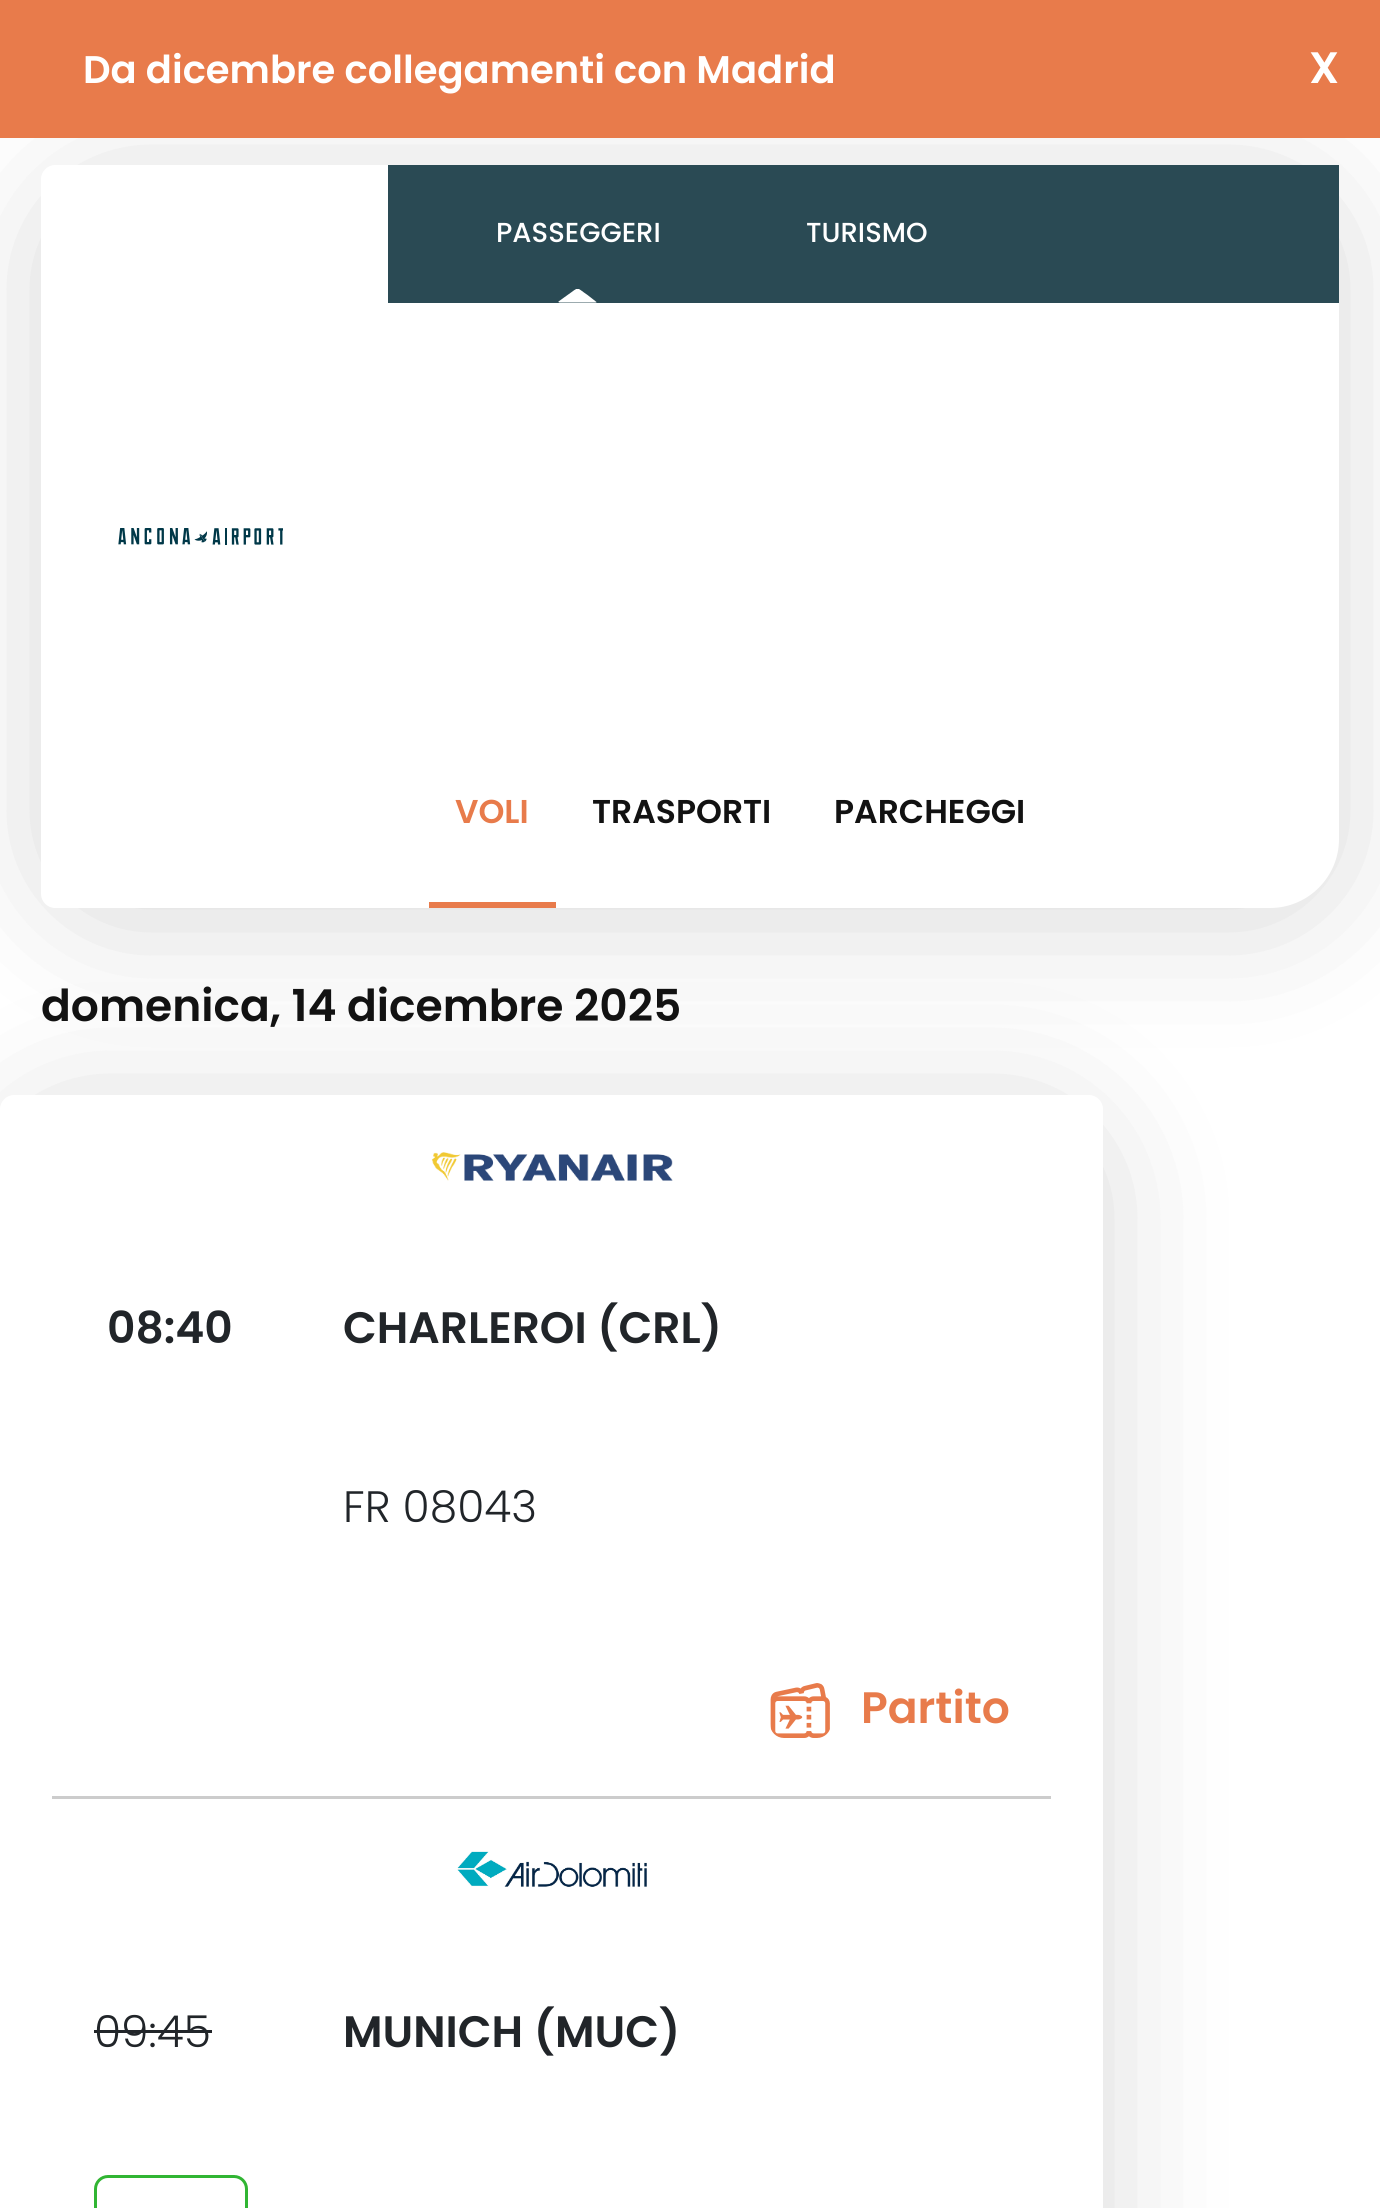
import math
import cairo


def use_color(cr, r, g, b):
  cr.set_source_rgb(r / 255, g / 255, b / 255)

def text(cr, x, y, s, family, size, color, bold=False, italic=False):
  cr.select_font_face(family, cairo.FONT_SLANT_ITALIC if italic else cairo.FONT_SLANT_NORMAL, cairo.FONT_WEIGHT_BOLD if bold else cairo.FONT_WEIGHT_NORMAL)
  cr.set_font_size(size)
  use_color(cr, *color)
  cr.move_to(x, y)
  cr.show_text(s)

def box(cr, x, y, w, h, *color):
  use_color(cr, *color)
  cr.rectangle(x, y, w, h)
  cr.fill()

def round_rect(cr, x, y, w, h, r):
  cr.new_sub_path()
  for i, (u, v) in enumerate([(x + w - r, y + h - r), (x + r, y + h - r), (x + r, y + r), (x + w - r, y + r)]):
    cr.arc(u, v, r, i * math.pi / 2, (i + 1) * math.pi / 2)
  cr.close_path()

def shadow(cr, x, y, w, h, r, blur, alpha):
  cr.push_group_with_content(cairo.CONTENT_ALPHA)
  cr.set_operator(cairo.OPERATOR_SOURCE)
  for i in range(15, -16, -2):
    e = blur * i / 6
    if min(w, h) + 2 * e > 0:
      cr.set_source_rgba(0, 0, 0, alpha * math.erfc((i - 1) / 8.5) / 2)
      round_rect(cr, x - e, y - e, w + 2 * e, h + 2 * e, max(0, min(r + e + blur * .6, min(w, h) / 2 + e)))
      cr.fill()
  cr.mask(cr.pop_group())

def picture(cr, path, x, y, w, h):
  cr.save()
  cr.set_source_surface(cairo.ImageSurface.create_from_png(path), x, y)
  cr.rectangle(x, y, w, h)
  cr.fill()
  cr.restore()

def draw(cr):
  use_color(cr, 255, 255, 255)
  cr.paint()
  use_color(cr, 0, 0, 0)
  shadow(cr, 0, 1108, 1103, 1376, 69, 69, 0.15)
  use_color(cr, 255, 255, 255)
  cr.new_path()
  cr.move_to(14, 1095)
  cr.line_to(1089, 1095)
  cr.curve_to(1096.5, 1095, 1103, 1101.5, 1103, 1109)
  cr.line_to(1103, 2208)
  cr.curve_to(1103, 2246, 1072, 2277, 1034, 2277)
  cr.line_to(14, 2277)
  cr.curve_to(6.5, 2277, 0, 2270.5, 0, 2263)
  cr.line_to(0, 1109)
  cr.curve_to(0, 1101.5, 6.5, 1095, 14, 1095)
  cr.close_path()
  cr.fill()
  use_color(cr, 0, 0, 0)
  shadow(cr, 41, 179, 1298, 742, 69, 69, 0.15)
  box(cr, 0, 0, 1380, 138, 232, 123, 75)
  use_color(cr, 255, 255, 255)
  cr.new_path()
  cr.move_to(55, 165)
  cr.line_to(1325, 165)
  cr.curve_to(1332.5, 165, 1339, 171.5, 1339, 179)
  cr.line_to(1339, 839)
  cr.curve_to(1339, 877, 1308, 908, 1270, 908)
  cr.line_to(55, 908)
  cr.curve_to(47.5, 908, 41, 901.5, 41, 894)
  cr.line_to(41, 179)
  cr.curve_to(41, 171.5, 47.5, 165, 55, 165)
  cr.close_path()
  cr.fill()
  picture(cr, "img_01.png", 118, 528, 165, 17)
  box(cr, 388, 165, 951, 138, 42, 74, 84)
  cr.save()
  cr.rectangle(558, 289, 39, 14)
  cr.clip()
  use_color(cr, 255, 255, 255)
  cr.new_path()
  cr.move_to(559.5, 302.5)
  cr.line_to(596, 302.5)
  cr.curve_to(596, 302.5, 597, 302, 596.5, 302)
  cr.line_to(587.5, 295)
  cr.curve_to(575, 286.5, 580, 286.5, 567.5, 295)
  cr.line_to(558.5, 301.5)
  cr.curve_to(558, 302, 559, 302.5, 559.5, 302.5)
  cr.close_path()
  cr.fill()
  cr.restore()
  box(cr, 429, 902, 127, 6, 232, 123, 75)
  box(cr, 52, 1796, 999, 3, 204, 204, 204)
  picture(cr, "img_02.png", 431, 1152, 242, 29)
  picture(cr, "img_03.png", 770, 1683, 60, 55)
  picture(cr, "img_04.png", 457, 1851, 190, 36)
  box(cr, 94, 2030, 118, 3, 33, 37, 41)
  round_rect(cr, 95.5, 2176.5, 151, 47, 12.5)
  use_color(cr, 49, 181, 51)
  cr.set_line_width(3)
  cr.stroke()
  text(cr, 83, 83, "Da dicembre collegamenti con Madrid", "Poppins SemiBold", 38.5, (255, 255, 255))
  text(cr, 1309, 83, "X", "Poppins SemiBold", 44, (255, 255, 255))
  text(cr, 496, 242, "PASSEGGERI", "Poppins Medium", 27.5, (255, 255, 255))
  text(cr, 806, 242, "TURISMO", "Poppins Medium", 27.5, (255, 255, 255))
  text(cr, 455, 823, "VOLI", "Poppins SemiBold", 33, (232, 123, 75))
  text(cr, 592, 823, "TRASPORTI", "Poppins SemiBold", 33, (18, 18, 18))
  text(cr, 834, 823, "PARCHEGGI", "Poppins SemiBold", 33, (18, 18, 18))
  text(cr, 41, 1021, "domenica, 14 dicembre 2025", "Poppins SemiBold", 44, (18, 18, 18))
  text(cr, 107, 1343, "08:40", "Poppins SemiBold", 44, (33, 37, 41))
  text(cr, 343, 1343, "CHARLEROI (CRL)", "Poppins SemiBold", 44, (33, 37, 41))
  text(cr, 343, 1522, "FR 08043", "Poppins Light", 44, (33, 37, 41))
  text(cr, 861, 1723, "Partito", "Poppins SemiBold", 44, (232, 123, 75))
  text(cr, 94, 2047, "09:45", "Poppins Light", 44, (33, 37, 41))
  text(cr, 343, 2047, "MUNICH (MUC)", "Poppins SemiBold", 44, (33, 37, 41))


surface = cairo.ImageSurface(cairo.FORMAT_RGB24, 1380, 2208)
cr = cairo.Context(surface)
options = cairo.FontOptions()
options.set_hint_metrics(cairo.HINT_METRICS_OFF)
options.set_hint_style(cairo.HINT_STYLE_NONE)
cr.set_font_options(options)
cr.set_miter_limit(4)
draw(cr)
surface.write_to_png("out.png")
